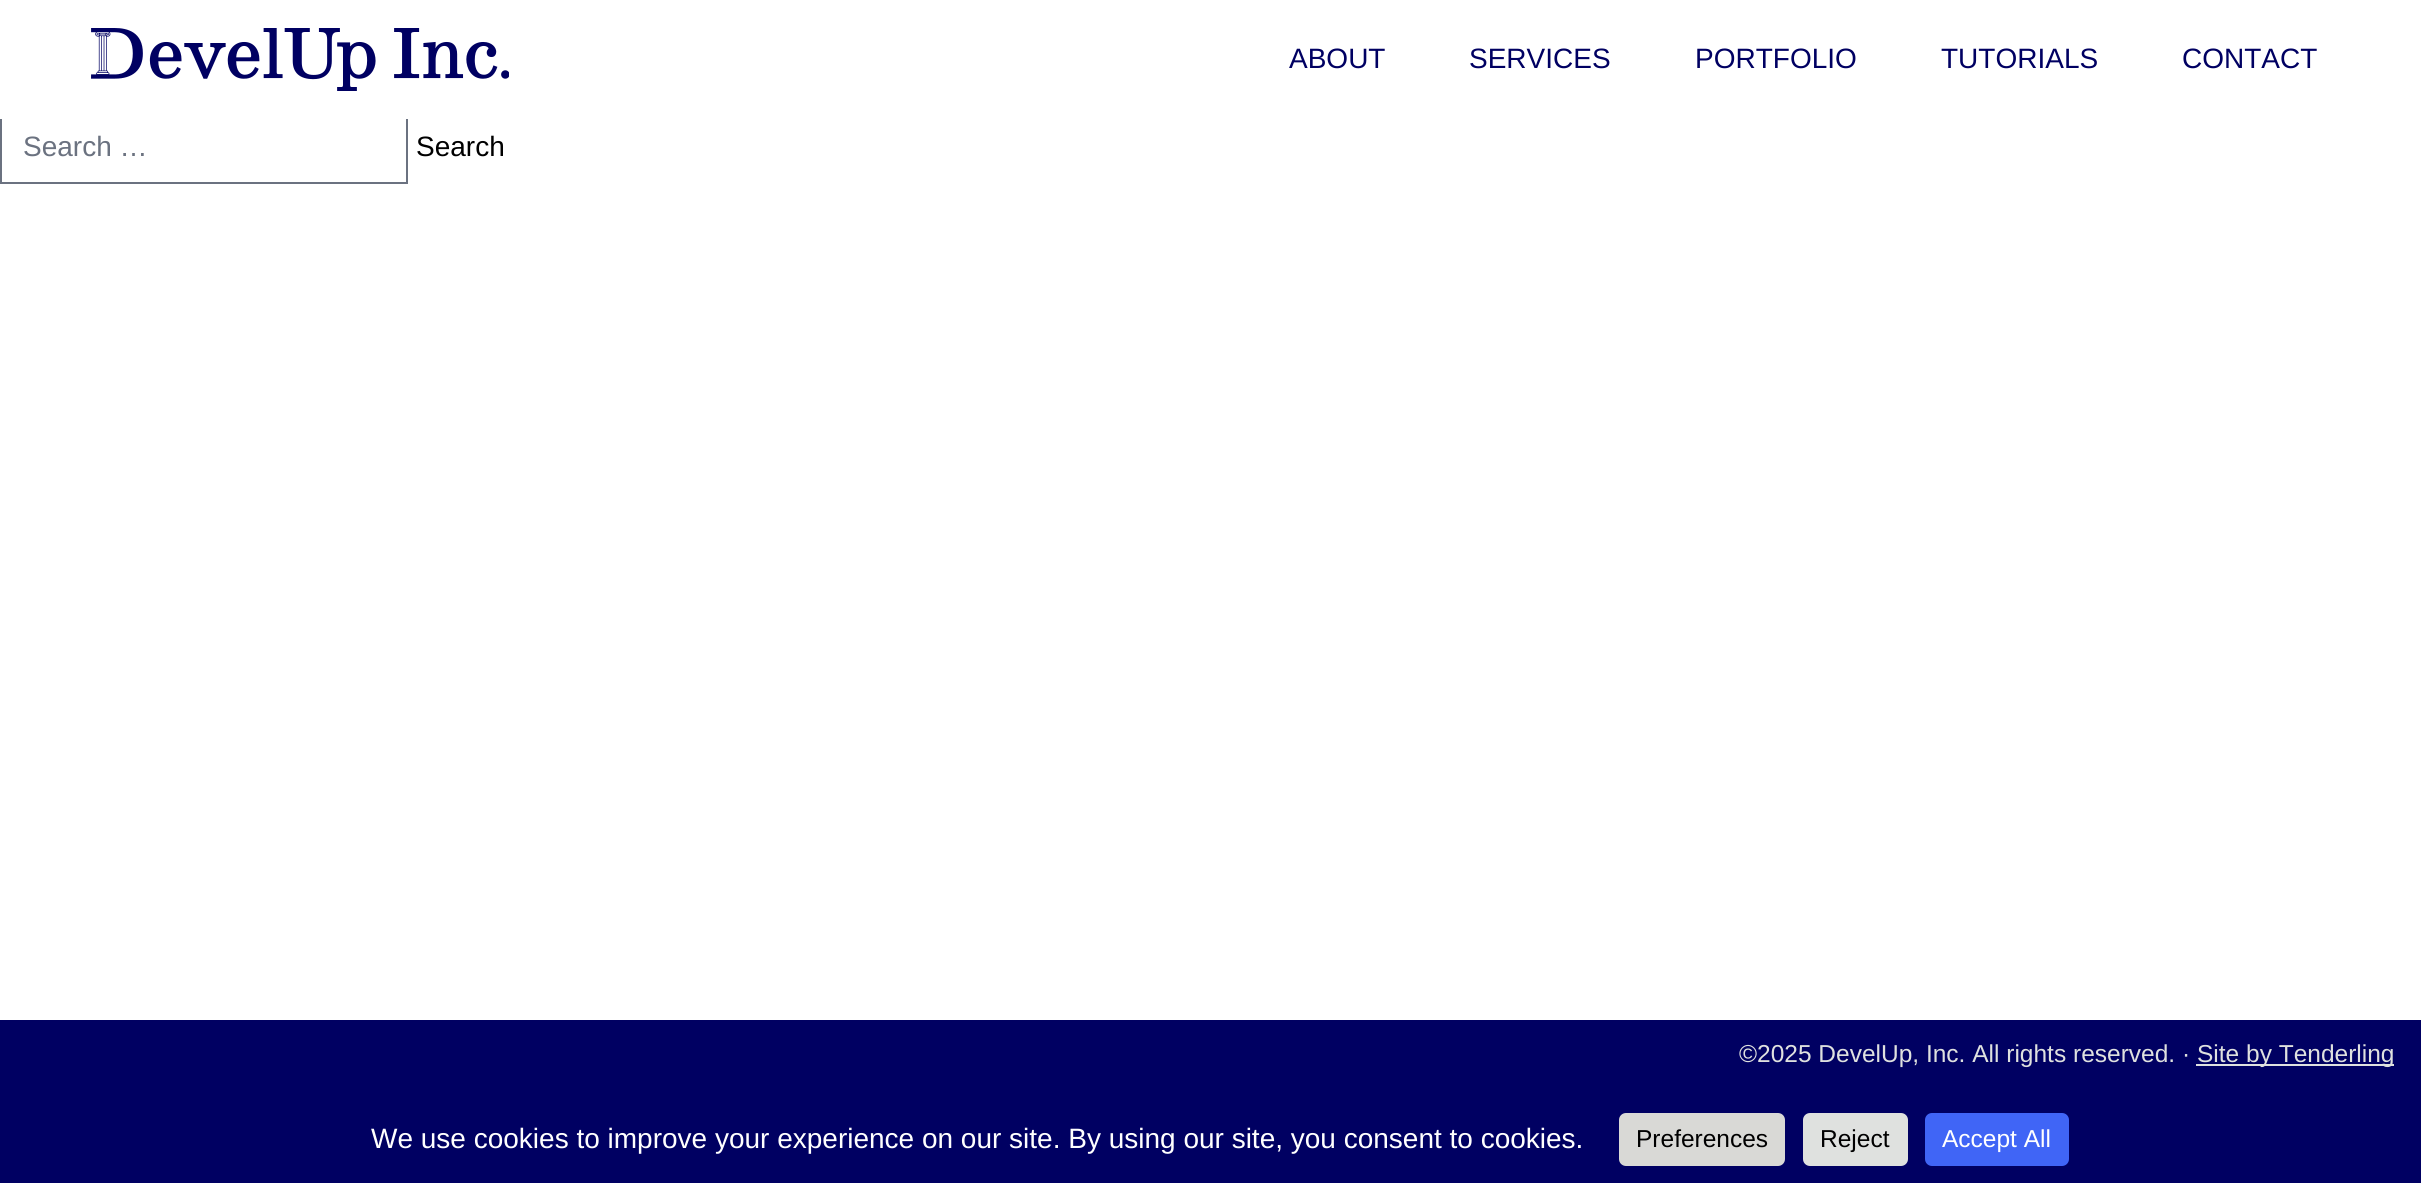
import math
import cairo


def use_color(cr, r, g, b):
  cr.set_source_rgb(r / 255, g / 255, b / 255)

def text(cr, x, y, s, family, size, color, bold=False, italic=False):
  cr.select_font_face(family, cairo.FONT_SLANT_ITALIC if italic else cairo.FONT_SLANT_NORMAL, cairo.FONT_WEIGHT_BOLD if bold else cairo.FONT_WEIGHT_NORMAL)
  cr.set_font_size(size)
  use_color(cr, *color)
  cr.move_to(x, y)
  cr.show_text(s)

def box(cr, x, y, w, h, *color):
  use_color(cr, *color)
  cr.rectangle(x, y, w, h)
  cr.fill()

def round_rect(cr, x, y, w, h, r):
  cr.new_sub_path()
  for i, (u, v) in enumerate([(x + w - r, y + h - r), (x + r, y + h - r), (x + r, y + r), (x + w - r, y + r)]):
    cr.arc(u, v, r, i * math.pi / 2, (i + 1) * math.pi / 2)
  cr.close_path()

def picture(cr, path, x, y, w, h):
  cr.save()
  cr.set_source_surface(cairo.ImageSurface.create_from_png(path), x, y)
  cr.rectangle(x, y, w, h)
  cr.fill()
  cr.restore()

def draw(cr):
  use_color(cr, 0, 0, 98)
  cr.paint()
  box(cr, 0, 119, 2421, 901, 255, 255, 255)
  cr.rectangle(1, 111, 406, 72)
  use_color(cr, 107, 114, 128)
  cr.stroke()
  box(cr, 0, 0, 2421, 119, 255, 255, 255)
  picture(cr, "img_01.png", 91, 28, 418, 63)
  box(cr, 2196, 1064, 198, 2, 223, 225, 223)
  use_color(cr, 217, 217, 214)
  round_rect(cr, 1619, 1113, 166, 53, 7)
  cr.fill()
  use_color(cr, 223, 225, 223)
  round_rect(cr, 1803, 1113, 105, 53, 7)
  cr.fill()
  use_color(cr, 64, 101, 246)
  round_rect(cr, 1925, 1113, 144, 53, 7)
  cr.fill()
  text(cr, 1289, 68, "ABOUT", "Liberation Sans", 28, (0, 0, 98))
  text(cr, 1469, 68, "SERVICES", "Liberation Sans", 28, (0, 0, 98))
  text(cr, 1695, 68, "PORTFOLIO", "Liberation Sans", 28, (0, 0, 98))
  text(cr, 1941, 68, "TUTORIALS", "Liberation Sans", 28, (0, 0, 98))
  text(cr, 2182, 68, "CONTACT", "Liberation Sans", 28, (0, 0, 98))
  text(cr, 23, 156, "Search …", "Liberation Sans", 28, (107, 114, 128))
  text(cr, 416, 156, "Search", "Liberation Sans", 28, (0, 0, 0))
  text(cr, 1739, 1062, "©2025 DevelUp, Inc. All rights reserved. ·", "Liberation Sans", 24.5, (223, 225, 223))
  text(cr, 2197, 1062, "Site by Tenderling", "Liberation Sans", 24.5, (223, 225, 223))
  text(cr, 371, 1148, "We use cookies to improve your experience on our site. By using our site, you consent to cookies.", "Liberation Sans", 28, (255, 255, 255))
  text(cr, 1636, 1147, "Preferences", "Liberation Sans", 24.5, (0, 0, 0))
  text(cr, 1820, 1147, "Reject", "Liberation Sans", 24.5, (0, 0, 0))
  text(cr, 1942, 1147, "Accept All", "Liberation Sans", 24.5, (255, 255, 255))


surface = cairo.ImageSurface(cairo.FORMAT_RGB24, 2421, 1183)
cr = cairo.Context(surface)
options = cairo.FontOptions()
options.set_hint_metrics(cairo.HINT_METRICS_OFF)
options.set_hint_style(cairo.HINT_STYLE_NONE)
cr.set_font_options(options)
cr.set_miter_limit(4)
draw(cr)
surface.write_to_png("out.png")
